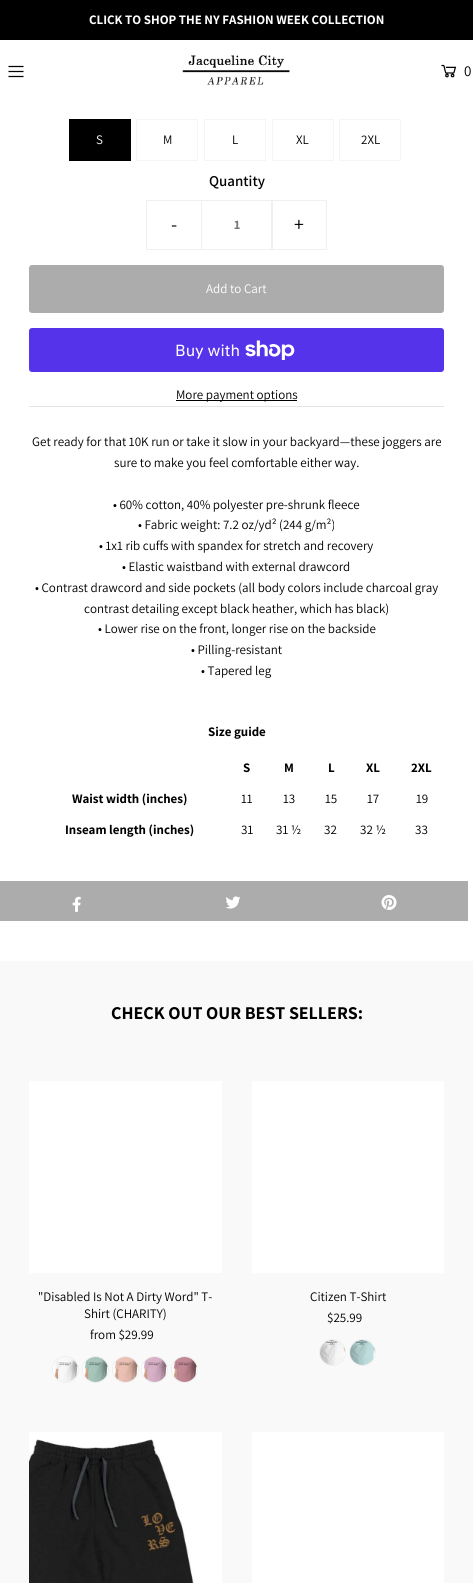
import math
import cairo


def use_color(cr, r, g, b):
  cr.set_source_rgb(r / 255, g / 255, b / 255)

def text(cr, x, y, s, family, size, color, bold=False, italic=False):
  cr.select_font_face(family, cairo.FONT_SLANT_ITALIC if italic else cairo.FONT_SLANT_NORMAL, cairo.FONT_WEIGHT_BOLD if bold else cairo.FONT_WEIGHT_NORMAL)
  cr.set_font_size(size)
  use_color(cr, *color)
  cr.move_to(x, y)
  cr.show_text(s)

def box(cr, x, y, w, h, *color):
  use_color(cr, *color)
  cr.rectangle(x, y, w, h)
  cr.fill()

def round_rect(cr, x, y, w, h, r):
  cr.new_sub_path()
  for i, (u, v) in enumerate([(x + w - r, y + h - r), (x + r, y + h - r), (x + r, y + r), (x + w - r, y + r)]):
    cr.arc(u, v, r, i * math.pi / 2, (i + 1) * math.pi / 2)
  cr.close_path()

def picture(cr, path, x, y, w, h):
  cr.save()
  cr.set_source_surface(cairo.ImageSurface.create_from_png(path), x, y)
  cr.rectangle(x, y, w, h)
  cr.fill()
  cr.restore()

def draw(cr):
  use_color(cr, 255, 255, 255)
  cr.paint()
  box(cr, 0, 0, 473, 40, 0, 0, 0)
  picture(cr, "img_01.png", 8, 65, 16, 13)
  picture(cr, "img_02.png", 182, 55, 108, 30)
  picture(cr, "img_03.png", 441, 64, 16, 14)
  box(cr, 29, 406, 415, 1, 229, 229, 229)
  box(cr, 69, 119, 62, 42, 0, 0, 0)
  cr.rectangle(136.5, 119.5, 61, 41)
  use_color(cr, 245, 245, 245)
  cr.set_line_width(1)
  cr.stroke()
  cr.rectangle(204.5, 119.5, 61, 41)
  cr.stroke()
  cr.rectangle(272.5, 119.5, 61, 41)
  cr.stroke()
  cr.rectangle(339.5, 119.5, 61, 41)
  cr.stroke()
  cr.rectangle(146.5, 200.5, 55, 49)
  use_color(cr, 240, 240, 240)
  cr.stroke()
  round_rect(cr, 201.5, 200.5, 71, 49, 1.5)
  cr.stroke()
  cr.rectangle(271.5, 200.5, 55, 49)
  cr.stroke()
  use_color(cr, 172, 172, 172)
  round_rect(cr, 29, 265, 415, 48, 3)
  cr.fill()
  use_color(cr, 84, 51, 235)
  round_rect(cr, 29, 328, 415, 44, 3)
  cr.fill()
  picture(cr, "img_04.png", 245, 340, 50, 20)
  box(cr, 176, 400, 121, 1, 0, 0, 0)
  box(cr, 0, 881, 468, 40, 172, 172, 172)
  picture(cr, "img_05.png", 72, 896, 9, 16)
  picture(cr, "img_06.png", 225, 896, 16, 13)
  picture(cr, "img_07.png", 381, 895, 16, 15)
  box(cr, 0, 961, 473, 622, 249, 249, 249)
  box(cr, 29, 1081, 193, 192, 255, 255, 255)
  cr.arc(65.5, 1369.5, 13, 0, 2 * math.pi)
  use_color(cr, 238, 238, 238)
  cr.stroke()
  picture(cr, "img_08.png", 53, 1359, 25, 23)
  cr.arc(95.5, 1369.5, 13, 0, 2 * math.pi)
  cr.stroke()
  picture(cr, "img_09.png", 83, 1357, 25, 25)
  cr.arc(125.5, 1369.5, 13, 0, 2 * math.pi)
  cr.stroke()
  picture(cr, "img_10.png", 113, 1357, 25, 25)
  cr.arc(154.5, 1369.5, 13, 0, 2 * math.pi)
  cr.stroke()
  picture(cr, "img_11.png", 142, 1357, 25, 25)
  cr.arc(184.5, 1369.5, 13, 0, 2 * math.pi)
  cr.stroke()
  picture(cr, "img_12.png", 172, 1357, 25, 25)
  box(cr, 252, 1081, 192, 192, 255, 255, 255)
  cr.arc(332.5, 1352.5, 13, 0, 2 * math.pi)
  use_color(cr, 238, 238, 238)
  cr.stroke()
  picture(cr, "img_13.png", 320, 1340, 25, 25)
  cr.arc(362.5, 1352.5, 13, 0, 2 * math.pi)
  cr.stroke()
  picture(cr, "img_14.png", 350, 1340, 25, 25)
  box(cr, 29, 1432, 193, 151, 255, 255, 255)
  picture(cr, "img_15.png", 29, 1439, 165, 144)
  box(cr, 252, 1432, 192, 151, 255, 255, 255)
  text(cr, 89, 24, "CLICK TO SHOP THE NY FASHION WEEK COLLECTION", "Assistant", 13, (255, 255, 255), bold=True)
  text(cr, 464, 76, "0", "Assistant", 15, (0, 0, 0))
  text(cr, 96, 144, "S", "Assistant", 13, (255, 255, 255))
  text(cr, 163, 144, "M", "Assistant", 13, (0, 0, 0))
  text(cr, 232, 144, "L", "Assistant", 13, (0, 0, 0))
  text(cr, 296, 144, "XL", "Assistant", 13, (0, 0, 0))
  text(cr, 361, 144, "2XL", "Assistant", 13, (0, 0, 0))
  text(cr, 209, 186, "Quantity", "Assistant SemiBold", 15, (0, 0, 0))
  text(cr, 171, 231, "-", "Assistant", 20, (0, 0, 0))
  text(cr, 234, 229, "1", "Assistant", 13, (119, 119, 119), bold=True)
  text(cr, 294, 231, "+", "Assistant", 20, (0, 0, 0))
  text(cr, 206, 293, "Add to Cart", "Assistant", 13, (255, 255, 255))
  text(cr, 175, 356, "Buy with", "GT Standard", 16, (255, 255, 255))
  text(cr, 176, 399, "More payment options", "Assistant", 13, (0, 0, 0))
  text(cr, 32, 446, "Get ready for that 10K run or take it slow in your backyard—these joggers are", "Assistant", 13, (0, 0, 0))
  text(cr, 114, 467, "sure to make you feel comfortable either way.", "Assistant", 13, (0, 0, 0))
  text(cr, 113, 509, "• 60% cotton, 40% polyester pre-shrunk fleece", "Assistant", 13, (0, 0, 0))
  text(cr, 138, 529, "• Fabric weight: 7.2 oz/yd² (244 g/m²)", "Assistant", 13, (0, 0, 0))
  text(cr, 99, 550, "• 1x1 rib cuffs with spandex for stretch and recovery", "Assistant", 13, (0, 0, 0))
  text(cr, 122, 571, "• Elastic waistband with external drawcord", "Assistant", 13, (0, 0, 0))
  text(cr, 35, 592, "• Contrast drawcord and side pockets (all body colors include charcoal gray", "Assistant", 13, (0, 0, 0))
  text(cr, 84, 613, "contrast detailing except black heather, which has black)", "Assistant", 13, (0, 0, 0))
  text(cr, 98, 633, "• Lower rise on the front, longer rise on the backside", "Assistant", 13, (0, 0, 0))
  text(cr, 191, 654, "• Pilling-resistant", "Assistant", 13, (0, 0, 0))
  text(cr, 201, 675, "• Tapered leg", "Assistant", 13, (0, 0, 0))
  text(cr, 208, 736, "Size guide", "Assistant", 13, (0, 0, 0), bold=True)
  text(cr, 243, 772, "S", "Assistant", 13, (0, 0, 0), bold=True)
  text(cr, 284, 772, "M", "Assistant", 13, (0, 0, 0), bold=True)
  text(cr, 328, 772, "L", "Assistant", 13, (0, 0, 0), bold=True)
  text(cr, 366, 772, "XL", "Assistant", 13, (0, 0, 0), bold=True)
  text(cr, 411, 772, "2XL", "Assistant", 13, (0, 0, 0), bold=True)
  text(cr, 72, 803, "Waist width (inches)", "Assistant", 13, (0, 0, 0), bold=True)
  text(cr, 241, 803, "11", "Assistant", 13, (0, 0, 0))
  text(cr, 283, 803, "13", "Assistant", 13, (0, 0, 0))
  text(cr, 325, 803, "15", "Assistant", 13, (0, 0, 0))
  text(cr, 367, 803, "17", "Assistant", 13, (0, 0, 0))
  text(cr, 416, 803, "19", "Assistant", 13, (0, 0, 0))
  text(cr, 65, 834, "Inseam length (inches)", "Assistant", 13, (0, 0, 0), bold=True)
  text(cr, 241, 834, "31", "Assistant", 13, (0, 0, 0))
  text(cr, 276, 834, "31 ½", "Assistant", 13, (0, 0, 0))
  text(cr, 324, 834, "32", "Assistant", 13, (0, 0, 0))
  text(cr, 360, 834, "32 ½", "Assistant", 13, (0, 0, 0))
  text(cr, 415, 834, "33", "Assistant", 13, (0, 0, 0))
  text(cr, 111, 1019, "CHECK OUT OUR BEST SELLERS:", "Assistant", 18, (0, 0, 0), bold=True)
  text(cr, 38, 1301, "\"Disabled Is Not A Dirty Word\" T-", "Assistant", 13, (0, 0, 0))
  text(cr, 84, 1318, "Shirt (CHARITY)", "Assistant", 13, (0, 0, 0))
  text(cr, 90, 1339, "from $29.99", "Assistant", 13, (0, 0, 0))
  text(cr, 310, 1301, "Citizen T-Shirt", "Assistant", 13, (0, 0, 0))
  text(cr, 327, 1322, "$25.99", "Assistant", 13, (0, 0, 0))


surface = cairo.ImageSurface(cairo.FORMAT_RGB24, 473, 1583)
cr = cairo.Context(surface)
options = cairo.FontOptions()
options.set_hint_metrics(cairo.HINT_METRICS_OFF)
options.set_hint_style(cairo.HINT_STYLE_NONE)
cr.set_font_options(options)
cr.set_miter_limit(4)
draw(cr)
surface.write_to_png("out.png")
